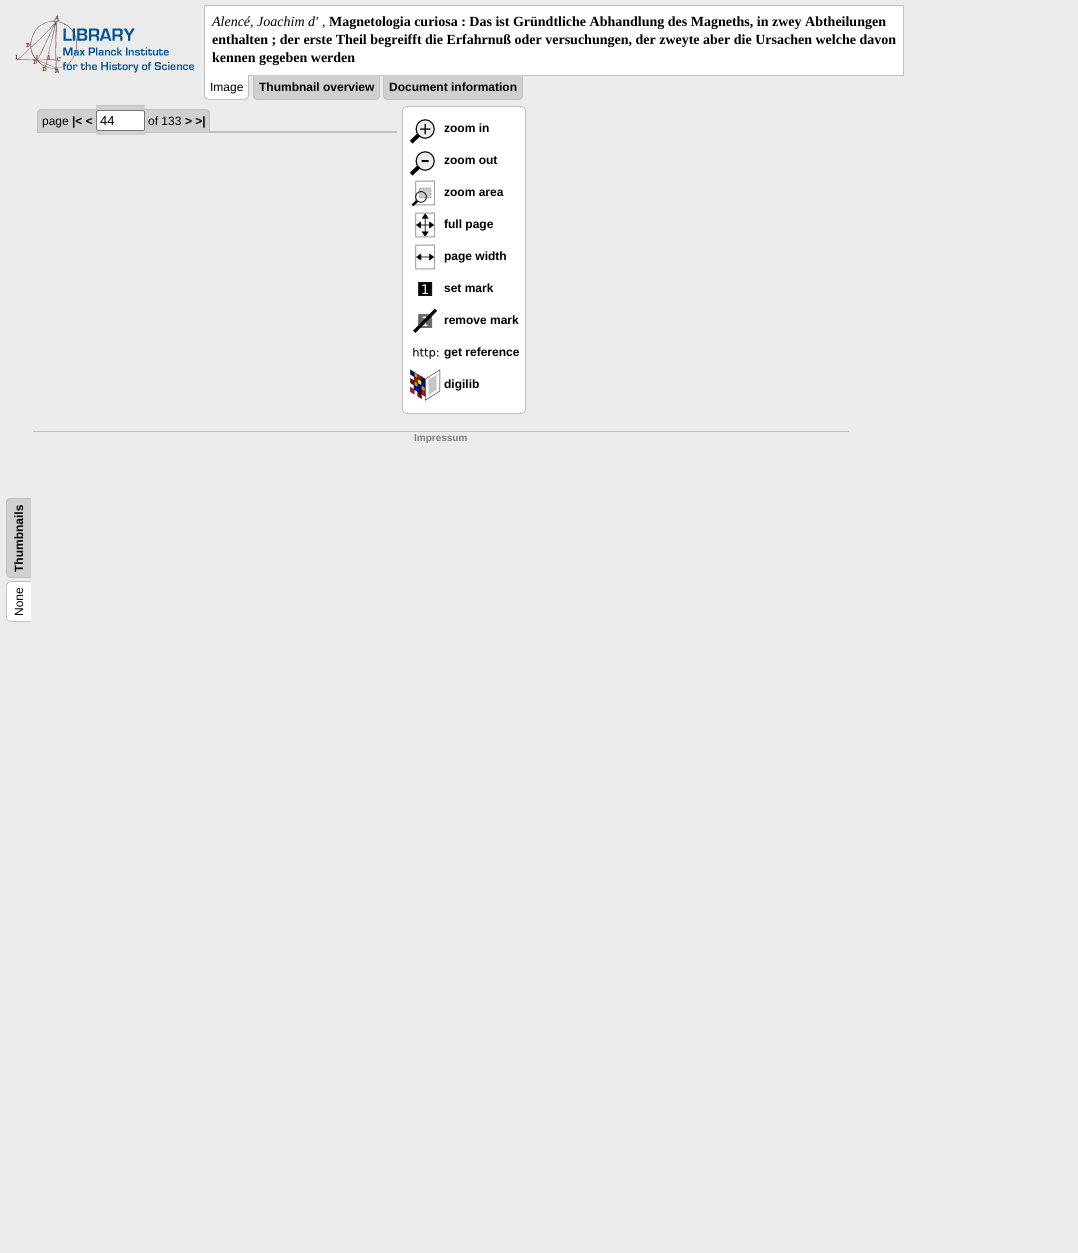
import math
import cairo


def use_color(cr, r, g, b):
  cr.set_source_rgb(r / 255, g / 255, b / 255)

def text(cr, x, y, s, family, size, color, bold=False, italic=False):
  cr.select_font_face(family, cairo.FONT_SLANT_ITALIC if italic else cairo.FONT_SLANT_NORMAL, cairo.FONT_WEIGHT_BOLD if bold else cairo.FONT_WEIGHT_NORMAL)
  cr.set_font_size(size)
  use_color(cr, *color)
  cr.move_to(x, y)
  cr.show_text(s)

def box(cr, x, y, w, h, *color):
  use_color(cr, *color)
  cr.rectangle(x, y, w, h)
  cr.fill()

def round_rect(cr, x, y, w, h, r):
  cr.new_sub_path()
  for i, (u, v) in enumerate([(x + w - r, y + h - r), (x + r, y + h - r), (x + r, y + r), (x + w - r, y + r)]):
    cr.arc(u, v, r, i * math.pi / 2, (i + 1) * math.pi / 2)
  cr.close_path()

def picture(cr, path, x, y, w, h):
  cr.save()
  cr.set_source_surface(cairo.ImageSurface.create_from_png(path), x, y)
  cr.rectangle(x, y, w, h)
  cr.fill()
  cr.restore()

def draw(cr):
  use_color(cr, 235, 235, 235)
  cr.paint()
  picture(cr, "img_01.png", 15, 15, 179, 58)
  use_color(cr, 255, 255, 255)
  cr.rectangle(204.5, 5.5, 699, 70)
  cr.fill_preserve()
  use_color(cr, 192, 192, 192)
  cr.set_line_width(1)
  cr.stroke()
  use_color(cr, 255, 255, 255)
  cr.new_path()
  cr.move_to(204, 75)
  cr.line_to(249, 75)
  cr.line_to(249, 95)
  cr.curve_to(249, 98, 247, 100, 244, 100)
  cr.line_to(209, 100)
  cr.curve_to(206, 100, 204, 98, 204, 95)
  cr.close_path()
  cr.fill()
  use_color(cr, 192, 192, 192)
  cr.set_fill_rule(cairo.FILL_RULE_EVEN_ODD)
  cr.new_path()
  cr.move_to(204, 75)
  cr.line_to(249, 75)
  cr.line_to(249, 95)
  cr.curve_to(249, 98, 247, 100, 244, 100)
  cr.line_to(209, 100)
  cr.curve_to(206, 100, 204, 98, 204, 95)
  cr.close_path()
  cr.move_to(205, 75)
  cr.line_to(248, 75)
  cr.line_to(248, 95)
  cr.curve_to(248, 97, 246, 99, 244, 99)
  cr.line_to(209, 99)
  cr.curve_to(207, 99, 205, 97, 205, 95)
  cr.close_path()
  cr.fill()
  use_color(cr, 208, 208, 208)
  cr.new_path()
  cr.move_to(253, 75)
  cr.line_to(380, 75)
  cr.line_to(380, 95)
  cr.curve_to(380, 98, 378, 100, 375, 100)
  cr.line_to(258, 100)
  cr.curve_to(255, 100, 253, 98, 253, 95)
  cr.close_path()
  cr.fill()
  use_color(cr, 192, 192, 192)
  cr.new_path()
  cr.move_to(253, 75)
  cr.line_to(380, 75)
  cr.line_to(380, 95)
  cr.curve_to(380, 98, 378, 100, 375, 100)
  cr.line_to(258, 100)
  cr.curve_to(255, 100, 253, 98, 253, 95)
  cr.close_path()
  cr.move_to(254, 75)
  cr.line_to(379, 75)
  cr.line_to(379, 95)
  cr.curve_to(379, 97, 377, 99, 375, 99)
  cr.line_to(258, 99)
  cr.curve_to(256, 99, 254, 97, 254, 95)
  cr.close_path()
  cr.fill()
  use_color(cr, 208, 208, 208)
  cr.new_path()
  cr.move_to(383, 75)
  cr.line_to(523, 75)
  cr.line_to(523, 95)
  cr.curve_to(523, 98, 521, 100, 518, 100)
  cr.line_to(388, 100)
  cr.curve_to(385, 100, 383, 98, 383, 95)
  cr.close_path()
  cr.fill()
  use_color(cr, 192, 192, 192)
  cr.new_path()
  cr.move_to(383, 75)
  cr.line_to(523, 75)
  cr.line_to(523, 95)
  cr.curve_to(523, 98, 521, 100, 518, 100)
  cr.line_to(388, 100)
  cr.curve_to(385, 100, 383, 98, 383, 95)
  cr.close_path()
  cr.move_to(384, 75)
  cr.line_to(522, 75)
  cr.line_to(522, 95)
  cr.curve_to(522, 97, 520, 99, 518, 99)
  cr.line_to(388, 99)
  cr.curve_to(386, 99, 384, 97, 384, 95)
  cr.close_path()
  cr.fill()
  box(cr, 37, 131, 360, 2, 192, 192, 192)
  use_color(cr, 208, 208, 208)
  cr.new_path()
  cr.move_to(42, 109)
  cr.line_to(72, 109)
  cr.line_to(72, 132)
  cr.line_to(37, 132)
  cr.line_to(37, 114)
  cr.curve_to(37, 111, 39, 109, 42, 109)
  cr.close_path()
  cr.fill()
  use_color(cr, 192, 192, 192)
  cr.new_path()
  cr.move_to(42, 109)
  cr.line_to(72, 109)
  cr.line_to(72, 132)
  cr.line_to(37, 132)
  cr.line_to(37, 114)
  cr.curve_to(37, 111, 39, 109, 42, 109)
  cr.close_path()
  cr.move_to(42, 110)
  cr.line_to(72, 110)
  cr.line_to(72, 132)
  cr.line_to(38, 132)
  cr.line_to(38, 114)
  cr.curve_to(38, 112, 40, 110, 42, 110)
  cr.close_path()
  cr.fill()
  box(cr, 72, 110, 10, 22, 208, 208, 208)
  box(cr, 72, 109, 10, 1, 192, 192, 192)
  box(cr, 82, 109, 14, 23, 208, 208, 208)
  box(cr, 82, 109, 14, 1, 192, 192, 192)
  box(cr, 96, 106, 49, 29, 208, 208, 208)
  box(cr, 96, 105, 49, 1, 192, 192, 192)
  box(cr, 145, 109, 3, 23, 208, 208, 208)
  box(cr, 145, 109, 40, 1, 192, 192, 192)
  box(cr, 148, 110, 37, 22, 208, 208, 208)
  box(cr, 185, 109, 10, 23, 208, 208, 208)
  box(cr, 185, 109, 10, 1, 192, 192, 192)
  use_color(cr, 208, 208, 208)
  cr.new_path()
  cr.move_to(195, 109)
  cr.line_to(205, 109)
  cr.curve_to(208, 109, 210, 111, 210, 114)
  cr.line_to(210, 132)
  cr.line_to(195, 132)
  cr.close_path()
  cr.fill()
  use_color(cr, 192, 192, 192)
  cr.new_path()
  cr.move_to(195, 109)
  cr.line_to(205, 109)
  cr.curve_to(208, 109, 210, 111, 210, 114)
  cr.line_to(210, 132)
  cr.line_to(195, 132)
  cr.close_path()
  cr.move_to(195, 110)
  cr.line_to(205, 110)
  cr.curve_to(207, 110, 209, 112, 209, 114)
  cr.line_to(209, 132)
  cr.line_to(195, 132)
  cr.close_path()
  cr.fill()
  use_color(cr, 255, 255, 255)
  round_rect(cr, 96.5, 110.5, 48, 20, 1.5)
  cr.fill_preserve()
  use_color(cr, 118, 118, 118)
  cr.stroke()
  use_color(cr, 255, 255, 255)
  round_rect(cr, 402.5, 106.5, 123, 307, 4.5)
  cr.fill_preserve()
  use_color(cr, 192, 192, 192)
  cr.stroke()
  picture(cr, "img_02.png", 409, 119, 26, 25)
  picture(cr, "img_03.png", 409, 151, 26, 25)
  picture(cr, "img_04.png", 411, 180, 24, 27)
  picture(cr, "img_05.png", 415, 212, 20, 26)
  picture(cr, "img_06.png", 415, 244, 20, 26)
  picture(cr, "img_07.png", 418, 282, 15, 14)
  picture(cr, "img_08.png", 413, 308, 24, 25)
  picture(cr, "img_09.png", 413, 347, 26, 12)
  picture(cr, "img_10.png", 410, 369, 31, 32)
  use_color(cr, 208, 208, 208)
  cr.set_fill_rule(cairo.FILL_RULE_WINDING)
  cr.new_path()
  cr.move_to(6, 573)
  cr.line_to(6, 503)
  cr.curve_to(6, 500, 8, 498, 11, 498)
  cr.line_to(31, 498)
  cr.line_to(31, 578)
  cr.line_to(11, 578)
  cr.curve_to(8, 578, 6, 575, 6, 573)
  cr.close_path()
  cr.fill()
  use_color(cr, 192, 192, 192)
  cr.set_fill_rule(cairo.FILL_RULE_EVEN_ODD)
  cr.new_path()
  cr.move_to(6, 573)
  cr.line_to(6, 503)
  cr.curve_to(6, 500, 8, 498, 11, 498)
  cr.line_to(31, 498)
  cr.line_to(31, 578)
  cr.line_to(11, 578)
  cr.curve_to(8, 578, 6, 575, 6, 573)
  cr.close_path()
  cr.move_to(7, 573)
  cr.line_to(7, 503)
  cr.curve_to(7, 501, 9, 499, 11, 499)
  cr.line_to(31, 499)
  cr.line_to(31, 577)
  cr.line_to(11, 577)
  cr.curve_to(9, 577, 7, 575, 7, 573)
  cr.close_path()
  cr.fill()
  use_color(cr, 255, 255, 255)
  cr.set_fill_rule(cairo.FILL_RULE_WINDING)
  cr.new_path()
  cr.move_to(6, 617)
  cr.line_to(6, 586)
  cr.curve_to(6, 583, 8, 581, 11, 581)
  cr.line_to(31, 581)
  cr.line_to(31, 622)
  cr.line_to(11, 622)
  cr.curve_to(8, 622, 6, 619, 6, 617)
  cr.close_path()
  cr.fill()
  use_color(cr, 192, 192, 192)
  cr.set_fill_rule(cairo.FILL_RULE_EVEN_ODD)
  cr.new_path()
  cr.move_to(6, 617)
  cr.line_to(6, 586)
  cr.curve_to(6, 583, 8, 581, 11, 581)
  cr.line_to(31, 581)
  cr.line_to(31, 622)
  cr.line_to(11, 622)
  cr.curve_to(8, 622, 6, 619, 6, 617)
  cr.close_path()
  cr.move_to(7, 617)
  cr.line_to(7, 586)
  cr.curve_to(7, 584, 9, 582, 11, 582)
  cr.line_to(31, 582)
  cr.line_to(31, 621)
  cr.line_to(11, 621)
  cr.curve_to(9, 621, 7, 619, 7, 617)
  cr.close_path()
  cr.fill()
  box(cr, 33, 431, 816, 1, 192, 192, 192)
  text(cr, 212, 26, "Alencé, Joachim d'", "Liberation Serif", 14, (0, 0, 0), italic=True)
  text(cr, 322, 26, ",", "Liberation Serif", 14, (0, 0, 0))
  text(cr, 329, 26, "Magnetologia curiosa : Das ist Gründtliche Abhandlung des Magneths, in zwey Abtheilungen", "Liberation Serif", 14, (0, 0, 0), bold=True)
  text(cr, 212, 44, "enthalten ; der erste Theil begreifft die Erfahrnuß oder versuchungen, der zweyte aber die Ursachen welche davon", "Liberation Serif", 14, (0, 0, 0), bold=True)
  text(cr, 212, 62, "kennen gegeben werden", "Liberation Serif", 14, (0, 0, 0), bold=True)
  text(cr, 210, 91, "Image", "Liberation Sans", 12, (0, 0, 0))
  text(cr, 259, 91, "Thumbnail overview", "Liberation Sans", 12, (0, 0, 0), bold=True)
  text(cr, 389, 91, "Document information", "Liberation Sans", 12, (0, 0, 0), bold=True)
  text(cr, 42, 125, "page", "Liberation Sans", 12, (0, 0, 0))
  text(cr, 72, 125, "|< <", "Liberation Sans", 12, (0, 0, 0), bold=True)
  text(cr, 100, 125, "44", "Liberation Sans", 13, (0, 0, 0))
  text(cr, 148, 125, "of 133", "Liberation Sans", 12, (0, 0, 0))
  text(cr, 185, 125, "> >|", "Liberation Sans", 12, (0, 0, 0), bold=True)
  text(cr, 444, 132, "zoom in", "Liberation Sans", 12, (0, 0, 0), bold=True)
  text(cr, 444, 164, "zoom out", "Liberation Sans", 12, (0, 0, 0), bold=True)
  text(cr, 444, 196, "zoom area", "Liberation Sans", 12, (0, 0, 0), bold=True)
  text(cr, 444, 228, "full page", "Liberation Sans", 12, (0, 0, 0), bold=True)
  text(cr, 444, 260, "page width", "Liberation Sans", 12, (0, 0, 0), bold=True)
  text(cr, 444, 292, "set mark", "Liberation Sans", 12, (0, 0, 0), bold=True)
  text(cr, 444, 324, "remove mark", "Liberation Sans", 12, (0, 0, 0), bold=True)
  text(cr, 444, 356, "get reference", "Liberation Sans", 12, (0, 0, 0), bold=True)
  text(cr, 444, 388, "digilib", "Liberation Sans", 12, (0, 0, 0), bold=True)
  cr.save()
  cr.translate(23, 572)
  cr.rotate(-90 * math.pi / 180)
  text(cr, 0, 0, "Thumbnails", "Liberation Sans", 12, (0, 0, 0), bold=True)
  cr.restore()
  cr.save()
  cr.translate(23, 616)
  cr.rotate(-90 * math.pi / 180)
  text(cr, 0, 0, "None", "Liberation Sans", 12, (0, 0, 0))
  cr.restore()
  text(cr, 414, 441, "Impressum", "Liberation Sans", 10, (128, 128, 128), bold=True)


surface = cairo.ImageSurface(cairo.FORMAT_RGB24, 1078, 1253)
cr = cairo.Context(surface)
options = cairo.FontOptions()
options.set_hint_metrics(cairo.HINT_METRICS_OFF)
options.set_hint_style(cairo.HINT_STYLE_NONE)
cr.set_font_options(options)
cr.set_miter_limit(4)
draw(cr)
surface.write_to_png("out.png")
